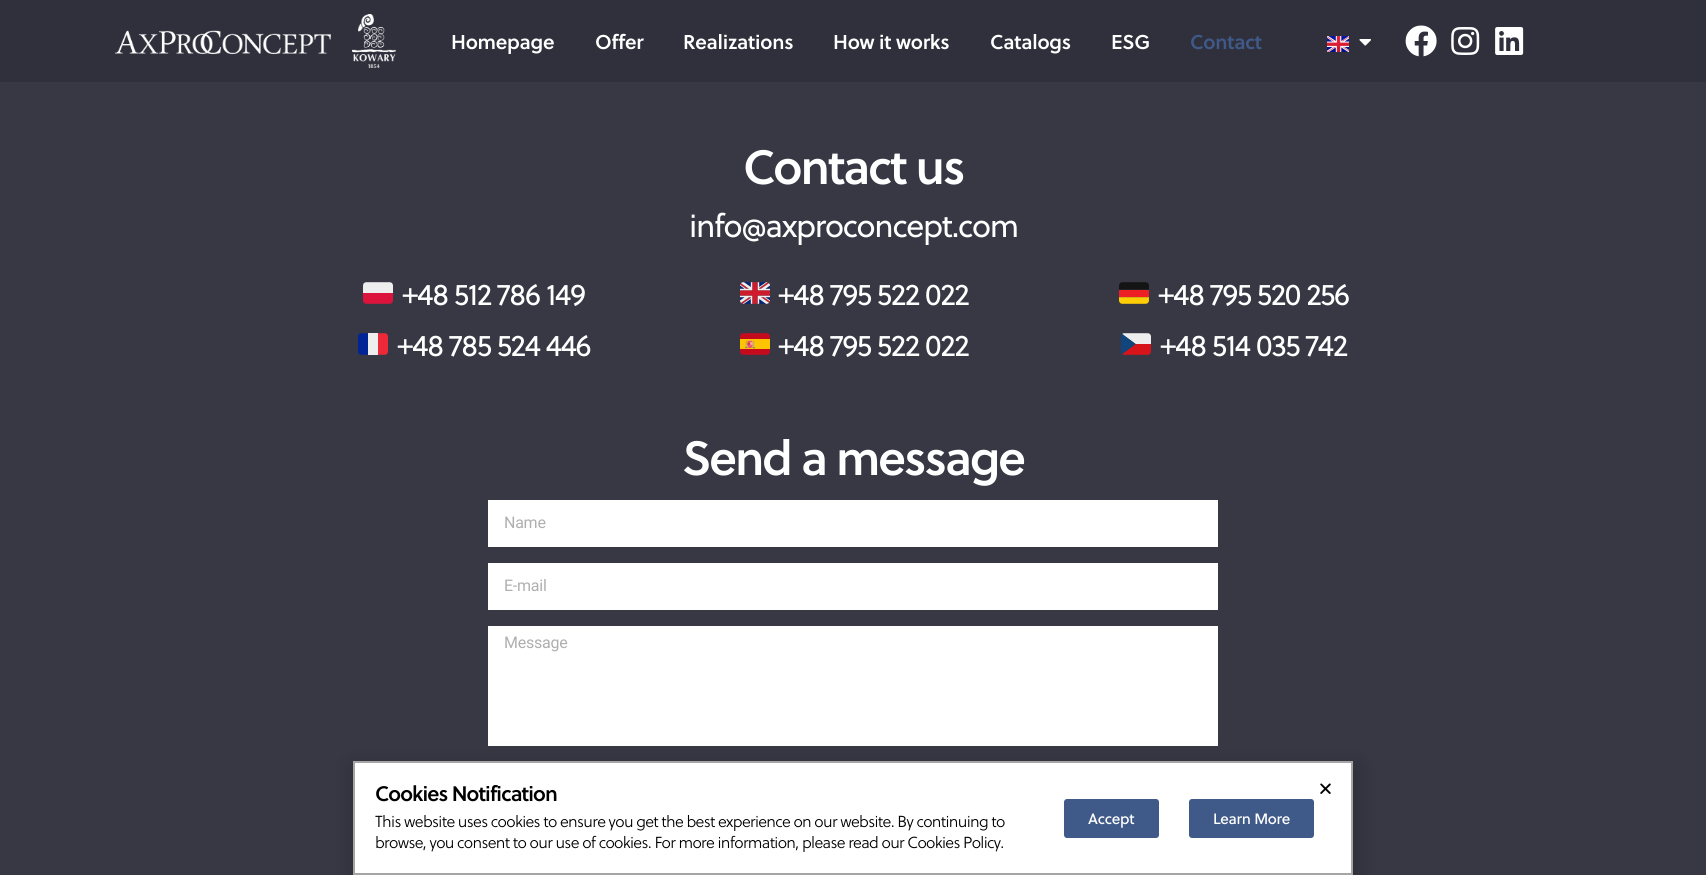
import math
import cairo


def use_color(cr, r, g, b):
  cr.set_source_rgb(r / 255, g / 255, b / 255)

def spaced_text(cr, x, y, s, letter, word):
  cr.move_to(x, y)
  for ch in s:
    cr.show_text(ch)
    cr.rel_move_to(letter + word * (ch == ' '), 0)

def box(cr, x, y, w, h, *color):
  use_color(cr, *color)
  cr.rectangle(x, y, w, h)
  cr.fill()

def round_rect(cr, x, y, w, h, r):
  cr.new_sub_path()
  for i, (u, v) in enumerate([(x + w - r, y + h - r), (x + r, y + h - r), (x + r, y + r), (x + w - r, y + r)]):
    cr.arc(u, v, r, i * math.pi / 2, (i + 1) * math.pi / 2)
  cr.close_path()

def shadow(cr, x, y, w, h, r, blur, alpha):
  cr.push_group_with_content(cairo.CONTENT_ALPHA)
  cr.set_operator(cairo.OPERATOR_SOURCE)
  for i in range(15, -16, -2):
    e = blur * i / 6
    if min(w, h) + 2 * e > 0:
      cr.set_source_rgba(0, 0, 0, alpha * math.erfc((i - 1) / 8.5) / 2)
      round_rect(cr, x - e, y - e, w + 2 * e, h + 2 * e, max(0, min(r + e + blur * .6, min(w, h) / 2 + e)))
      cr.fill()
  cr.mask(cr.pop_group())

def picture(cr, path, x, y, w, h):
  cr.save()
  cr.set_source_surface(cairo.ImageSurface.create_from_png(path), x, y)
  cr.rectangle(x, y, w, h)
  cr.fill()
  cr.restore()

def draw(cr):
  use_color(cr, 55, 56, 68)
  cr.paint()
  box(cr, 0, 0, 1706, 82, 48, 48, 60)
  picture(cr, "img_01.png", 115, 14, 281, 54)
  picture(cr, "img_02.png", 1327, 36, 22, 16)
  picture(cr, "img_03.png", 1359, 39, 12, 7)
  picture(cr, "img_04.png", 1405, 25, 32, 32)
  picture(cr, "img_05.png", 1451, 27, 29, 28)
  picture(cr, "img_06.png", 1495, 27, 29, 28)
  picture(cr, "img_07.png", 363, 282, 30, 22)
  picture(cr, "img_08.png", 740, 282, 30, 22)
  picture(cr, "img_09.png", 1119, 282, 30, 22)
  picture(cr, "img_10.png", 358, 333, 30, 22)
  picture(cr, "img_11.png", 740, 333, 30, 22)
  picture(cr, "img_12.png", 1121, 333, 30, 22)
  box(cr, 488, 500, 730, 47, 255, 255, 255)
  box(cr, 488, 563, 730, 47, 255, 255, 255)
  box(cr, 488, 626, 730, 120, 255, 255, 255)
  use_color(cr, 0, 0, 0)
  shadow(cr, 352, 766, 1006, 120, 0, 11.5, 0.2)
  use_color(cr, 255, 255, 255)
  cr.rectangle(354, 762, 998, 112)
  cr.fill_preserve()
  use_color(cr, 165, 165, 165)
  cr.stroke()
  use_color(cr, 63, 90, 136)
  round_rect(cr, 1064, 799, 95, 39, 3)
  cr.fill()
  round_rect(cr, 1189, 799, 125, 39, 3)
  cr.fill()
  picture(cr, "img_13.png", 1320, 783, 11, 11)
  cr.select_font_face("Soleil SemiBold")
  cr.set_font_size(20)
  use_color(cr, 255, 255, 255)
  spaced_text(cr, 451, 49, "Homepage", -0.25, 0)
  spaced_text(cr, 595, 49, "Offer", -0.25, 0)
  spaced_text(cr, 683, 49, "Realizations", -0.25, 0)
  spaced_text(cr, 833, 49, "How it works", -0.25, 0)
  spaced_text(cr, 990, 49, "Catalogs", -0.25, 0)
  spaced_text(cr, 1111, 49, "ESG", -0.25, 0)
  use_color(cr, 63, 90, 136)
  spaced_text(cr, 1190, 49, "Contact", -0.25, 0)
  cr.set_font_size(48)
  use_color(cr, 255, 255, 255)
  spaced_text(cr, 743, 184, "Contact us", -2, 0)
  cr.select_font_face("Soleil")
  cr.set_font_size(32)
  spaced_text(cr, 689, 237, "info@axproconcept.com", -1.3, 0)
  cr.set_font_size(30)
  spaced_text(cr, 402, 305, "+48 512 786 149", -1.25, 0)
  spaced_text(cr, 778, 305, "+48 795 522 022", -1.25, 0)
  spaced_text(cr, 1158, 305, "+48 795 520 256", -1.25, 0)
  spaced_text(cr, 397, 356, "+48 785 524 446", -1.25, 0)
  spaced_text(cr, 778, 356, "+48 795 522 022", -1.25, 0)
  spaced_text(cr, 1160, 356, "+48 514 035 742", -1.25, 0)
  cr.select_font_face("Soleil SemiBold")
  cr.set_font_size(48)
  spaced_text(cr, 682, 475, "Send a message", -2, 0)
  cr.select_font_face("Roboto")
  cr.set_font_size(16)
  use_color(cr, 175, 175, 175)
  spaced_text(cr, 504, 528, "Name", -0.25, 0)
  spaced_text(cr, 504, 591, "E-mail", -0.25, 0)
  spaced_text(cr, 504, 648, "Message", -0.25, 0)
  cr.select_font_face("Soleil SemiBold")
  cr.set_font_size(21)
  use_color(cr, 0, 0, 0)
  spaced_text(cr, 375, 801, "Cookies Notification", -0.9, 0)
  cr.select_font_face("Soleil Light")
  cr.set_font_size(16)
  spaced_text(cr, 375, 827, "This website uses cookies to ensure you get the best experience on our website. By continuing to", -0.67, 0)
  spaced_text(cr, 375, 848, "browse, you consent to our use of cookies. For more information, please read our Cookies Policy.", -0.67, 0)
  cr.select_font_face("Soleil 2")
  cr.set_font_size(15)
  use_color(cr, 255, 255, 255)
  spaced_text(cr, 1088, 824, "Accept", -0.25, 0)
  spaced_text(cr, 1213, 824, "Learn More", -0.25, 0)


surface = cairo.ImageSurface(cairo.FORMAT_RGB24, 1706, 875)
cr = cairo.Context(surface)
options = cairo.FontOptions()
options.set_hint_metrics(cairo.HINT_METRICS_OFF)
options.set_hint_style(cairo.HINT_STYLE_NONE)
cr.set_font_options(options)
cr.set_miter_limit(4)
draw(cr)
surface.write_to_png("out.png")
